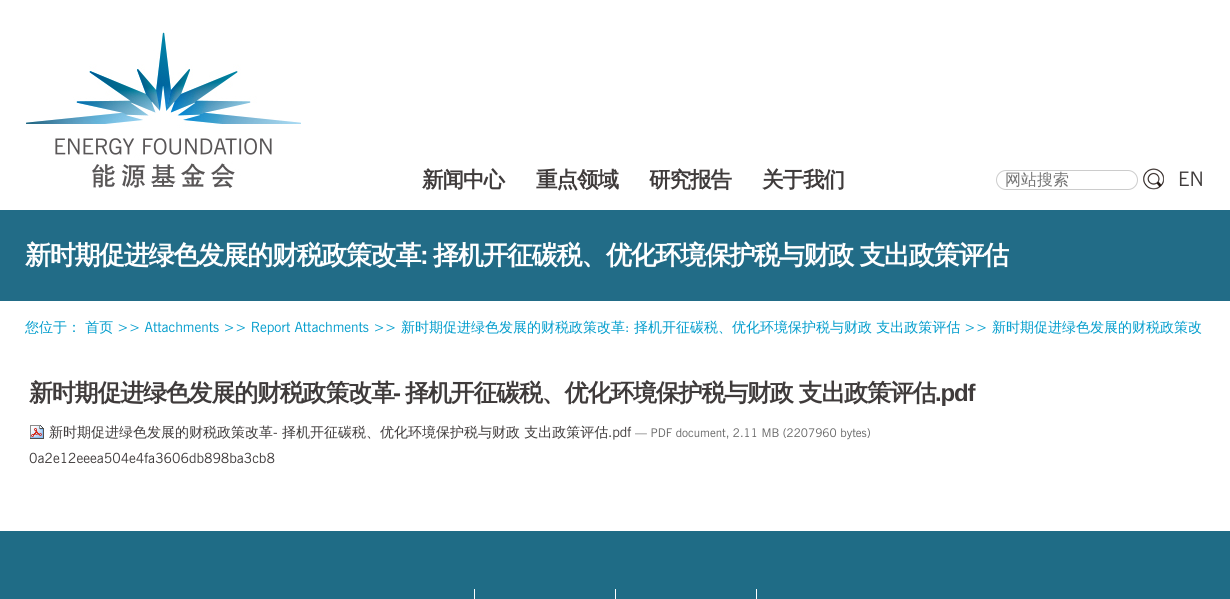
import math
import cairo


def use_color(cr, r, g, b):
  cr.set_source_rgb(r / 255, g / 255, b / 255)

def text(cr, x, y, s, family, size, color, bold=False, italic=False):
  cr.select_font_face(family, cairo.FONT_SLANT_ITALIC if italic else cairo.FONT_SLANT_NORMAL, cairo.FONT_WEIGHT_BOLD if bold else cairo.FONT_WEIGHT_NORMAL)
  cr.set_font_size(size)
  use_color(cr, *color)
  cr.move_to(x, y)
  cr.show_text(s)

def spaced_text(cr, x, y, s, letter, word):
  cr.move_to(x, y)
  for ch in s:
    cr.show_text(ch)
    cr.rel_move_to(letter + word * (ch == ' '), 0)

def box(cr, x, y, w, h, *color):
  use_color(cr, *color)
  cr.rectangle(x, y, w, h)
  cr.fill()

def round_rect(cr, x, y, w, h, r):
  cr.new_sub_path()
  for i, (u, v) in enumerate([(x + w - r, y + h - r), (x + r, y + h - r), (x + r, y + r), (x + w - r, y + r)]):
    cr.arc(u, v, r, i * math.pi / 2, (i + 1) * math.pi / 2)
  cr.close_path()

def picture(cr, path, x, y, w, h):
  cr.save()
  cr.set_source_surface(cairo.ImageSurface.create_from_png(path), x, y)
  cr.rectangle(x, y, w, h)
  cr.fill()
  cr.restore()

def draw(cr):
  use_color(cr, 255, 255, 255)
  cr.paint()
  picture(cr, "img_01.png", 26, 32, 275, 156)
  round_rect(cr, 996.5, 170.5, 141, 19, 9.5)
  use_color(cr, 204, 204, 204)
  cr.set_line_width(1)
  cr.stroke()
  picture(cr, "img_02.png", 1143, 168, 21, 22)
  box(cr, 0, 210, 1230, 91, 34, 108, 135)
  picture(cr, "img_03.png", 30, 425, 14, 14)
  box(cr, 0, 531, 1230, 68, 31, 108, 134)
  box(cr, 474, 589, 1, 10, 255, 255, 255)
  box(cr, 615, 589, 1, 10, 255, 255, 255)
  box(cr, 756, 589, 1, 10, 255, 255, 255)
  cr.select_font_face("WenQuanYi Zen Hei", cairo.FONT_SLANT_NORMAL, cairo.FONT_WEIGHT_BOLD)
  cr.set_font_size(21.5)
  use_color(cr, 63, 59, 59)
  spaced_text(cr, 422, 187, "新闻中心", -1, 0)
  spaced_text(cr, 536, 187, "重点领域", -1, 0)
  spaced_text(cr, 649, 187, "研究报告", -1, 0)
  spaced_text(cr, 762, 187, "关于我们", -1, 0)
  text(cr, 1005, 185, "网站搜索", "WenQuanYi Zen Hei Medium", 16, (117, 117, 117))
  text(cr, 1178, 186, "EN", "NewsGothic", 20, (63, 59, 59))
  cr.select_font_face("WenQuanYi Zen Hei", cairo.FONT_SLANT_NORMAL, cairo.FONT_WEIGHT_BOLD)
  cr.set_font_size(26)
  use_color(cr, 255, 255, 255)
  spaced_text(cr, 25, 264, "新时期促进绿色发展的财税政策改革", -1.3, 0)
  cr.select_font_face("Liberation Sans", cairo.FONT_SLANT_NORMAL, cairo.FONT_WEIGHT_BOLD)
  spaced_text(cr, 420, 264, ":", -1.3, 0)
  cr.select_font_face("WenQuanYi Zen Hei", cairo.FONT_SLANT_NORMAL, cairo.FONT_WEIGHT_BOLD)
  spaced_text(cr, 433, 264, "择机开征碳税、优化环境保护税与财政 支出政策评估", -1.3, 0)
  text(cr, 25, 332, "您位于： 首页", "WenQuanYi Zen Hei Medium", 14, (0, 156, 204))
  text(cr, 117, 332, ">> Attachments >> Report Attachments >>", "NewsGothic", 14, (0, 156, 204))
  text(cr, 401, 332, "新时期促进绿色发展的财税政策改革", "WenQuanYi Zen Hei Medium", 14, (0, 156, 204))
  text(cr, 625, 332, ":", "NewsGothic", 14, (0, 156, 204))
  text(cr, 634, 332, "择机开征碳税、优化环境保护税与财政 支出政策评估", "WenQuanYi Zen Hei Medium", 14, (0, 156, 204))
  text(cr, 964, 332, ">>", "NewsGothic", 14, (0, 156, 204))
  text(cr, 992, 332, "新时期促进绿色发展的财税政策改", "WenQuanYi Zen Hei Medium", 14, (0, 156, 204))
  cr.select_font_face("WenQuanYi Zen Hei", cairo.FONT_SLANT_NORMAL, cairo.FONT_WEIGHT_BOLD)
  cr.set_font_size(24)
  use_color(cr, 63, 59, 59)
  spaced_text(cr, 29, 401, "新时期促进绿色发展的财税政策改革", -1.2, 0)
  cr.select_font_face("Liberation Sans", cairo.FONT_SLANT_NORMAL, cairo.FONT_WEIGHT_BOLD)
  spaced_text(cr, 393, 401, "-", -1.2, 0)
  cr.select_font_face("WenQuanYi Zen Hei", cairo.FONT_SLANT_NORMAL, cairo.FONT_WEIGHT_BOLD)
  spaced_text(cr, 405, 401, "择机开征碳税、优化环境保护税与财政 支出政策评估", -1.2, 0)
  cr.select_font_face("Liberation Sans", cairo.FONT_SLANT_NORMAL, cairo.FONT_WEIGHT_BOLD)
  spaced_text(cr, 935, 401, ".pdf", -1.2, 0)
  text(cr, 49, 437, "新时期促进绿色发展的财税政策改革", "WenQuanYi Zen Hei Medium", 14, (63, 59, 59))
  text(cr, 273, 437, "-", "NewsGothic", 14, (63, 59, 59))
  text(cr, 282, 437, "择机开征碳税、优化环境保护税与财政 支出政策评估", "WenQuanYi Zen Hei Medium", 14, (63, 59, 59))
  text(cr, 608, 437, ".pdf", "NewsGothic", 14, (63, 59, 59))
  text(cr, 635, 437, "— PDF document, 2.11 MB (2207960 bytes)", "NewsGothic", 11.9, (102, 102, 102))
  text(cr, 29, 463, "0a2e12eeea504e4fa3606db898ba3cb8", "NewsGothic", 14, (63, 59, 59))


surface = cairo.ImageSurface(cairo.FORMAT_RGB24, 1230, 599)
cr = cairo.Context(surface)
options = cairo.FontOptions()
options.set_hint_metrics(cairo.HINT_METRICS_OFF)
options.set_hint_style(cairo.HINT_STYLE_NONE)
cr.set_font_options(options)
cr.set_miter_limit(4)
draw(cr)
surface.write_to_png("out.png")
